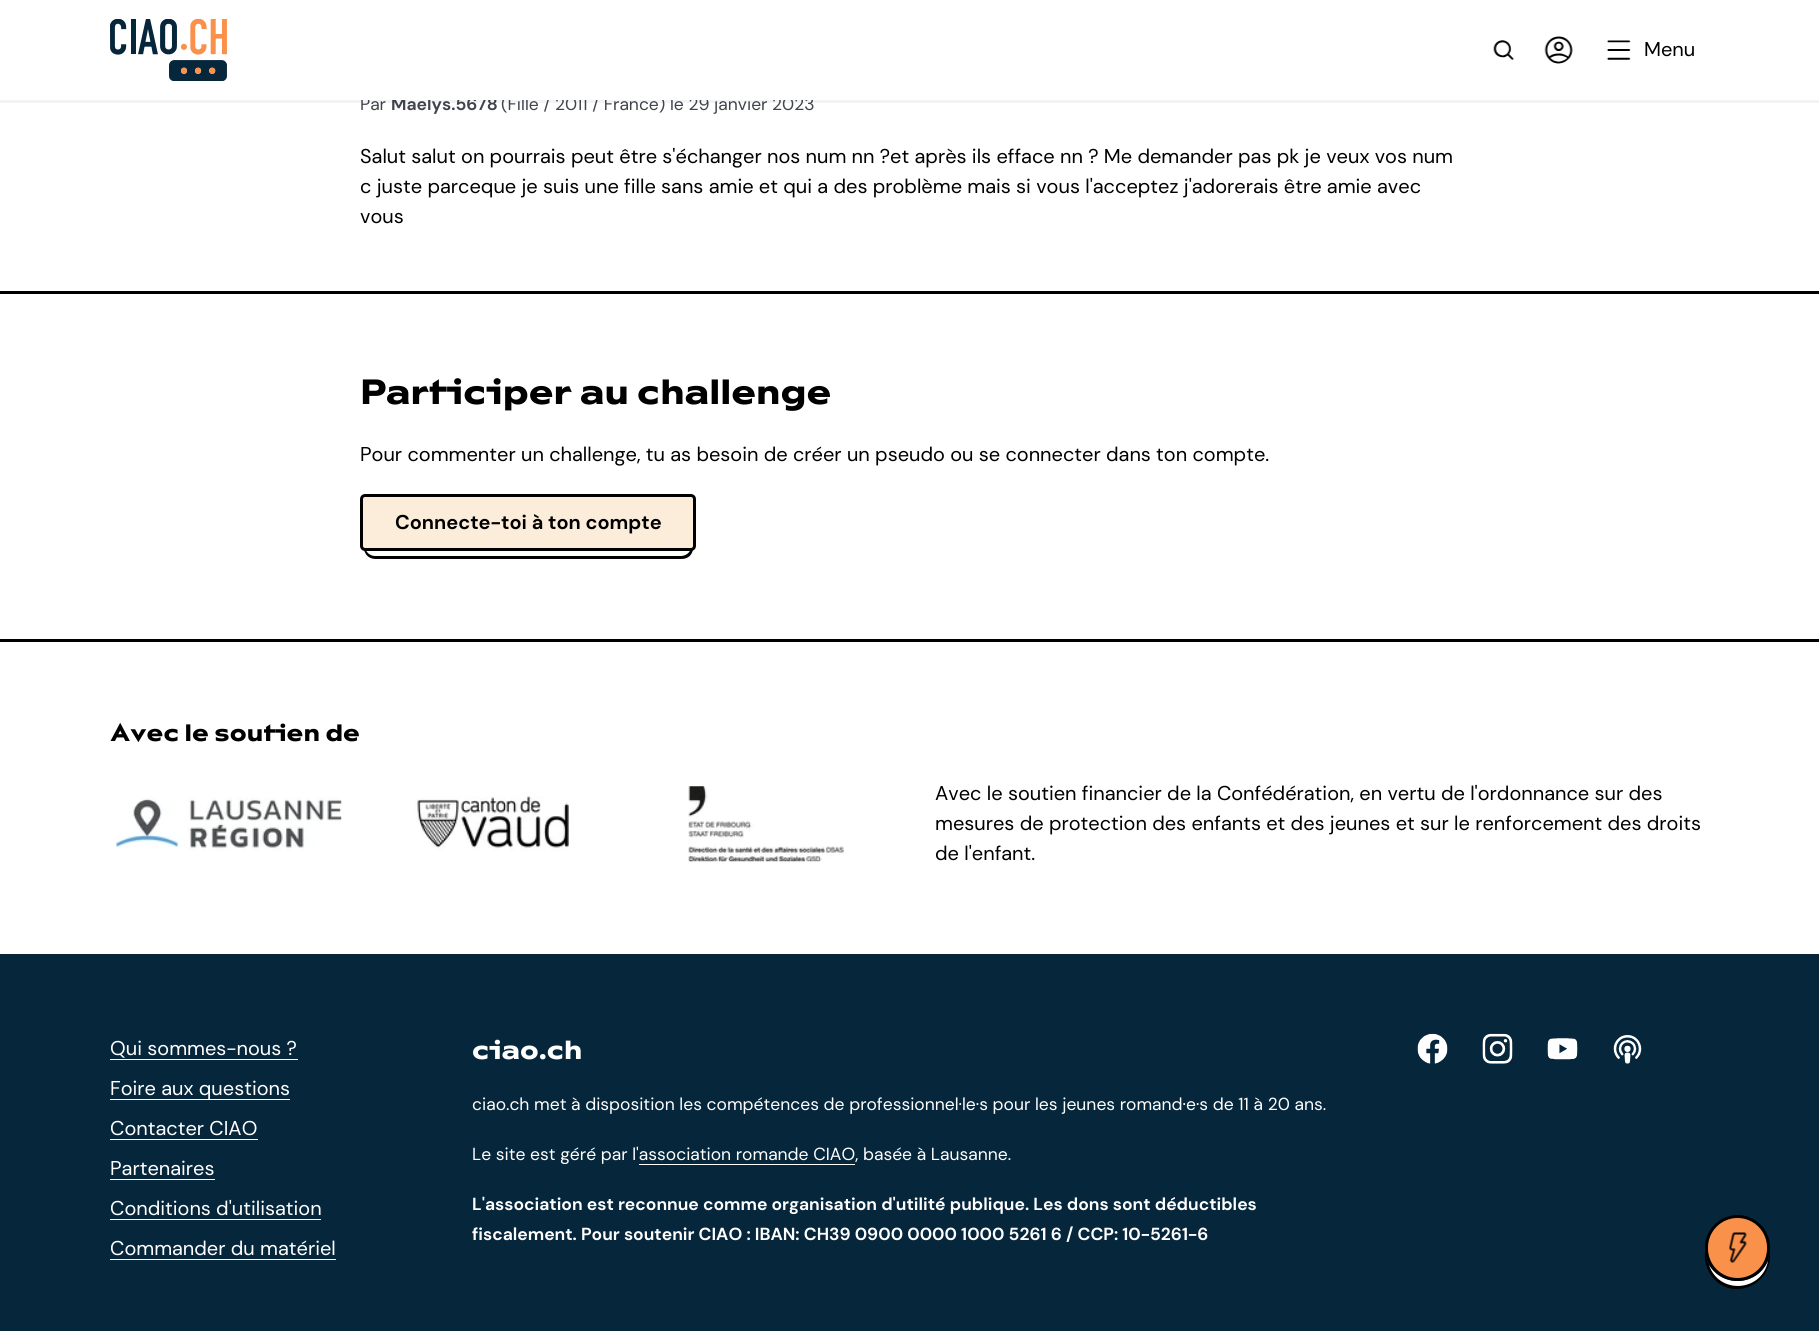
import math
import cairo


def use_color(cr, r, g, b):
  cr.set_source_rgb(r / 255, g / 255, b / 255)

def text(cr, x, y, s, family, size, color, bold=False, italic=False):
  cr.select_font_face(family, cairo.FONT_SLANT_ITALIC if italic else cairo.FONT_SLANT_NORMAL, cairo.FONT_WEIGHT_BOLD if bold else cairo.FONT_WEIGHT_NORMAL)
  cr.set_font_size(size)
  use_color(cr, *color)
  cr.move_to(x, y)
  cr.show_text(s)

def box(cr, x, y, w, h, *color):
  use_color(cr, *color)
  cr.rectangle(x, y, w, h)
  cr.fill()

def round_rect(cr, x, y, w, h, r):
  cr.new_sub_path()
  for i, (u, v) in enumerate([(x + w - r, y + h - r), (x + r, y + h - r), (x + r, y + r), (x + w - r, y + r)]):
    cr.arc(u, v, r, i * math.pi / 2, (i + 1) * math.pi / 2)
  cr.close_path()

def picture(cr, path, x, y, w, h):
  cr.save()
  cr.set_source_surface(cairo.ImageSurface.create_from_png(path), x, y)
  cr.rectangle(x, y, w, h)
  cr.fill()
  cr.restore()

def draw(cr):
  use_color(cr, 255, 255, 255)
  cr.paint()
  box(cr, 0, 291, 1819, 3, 0, 0, 0)
  use_color(cr, 251, 237, 217)
  round_rect(cr, 360, 494, 336, 57, 5)
  cr.fill()
  use_color(cr, 0, 0, 0)
  cr.new_path()
  cr.move_to(363, 542)
  cr.curve_to(363, 551, 366, 559, 376, 559)
  cr.line_to(681, 559)
  cr.curve_to(695, 559, 694, 545, 694, 535)
  cr.line_to(694, 511)
  cr.line_to(694, 539)
  cr.curve_to(694, 546, 688, 551, 681, 551)
  cr.line_to(375, 551)
  cr.curve_to(369, 551, 365, 547, 363, 542)
  cr.close_path()
  cr.fill()
  use_color(cr, 255, 255, 255)
  cr.new_path()
  cr.move_to(365, 546)
  cr.curve_to(365, 552, 370, 556, 375, 556)
  cr.line_to(681, 556)
  cr.curve_to(686, 556, 691, 552, 691, 547)
  cr.curve_to(689, 549, 685, 551, 681, 551)
  cr.line_to(375, 551)
  cr.curve_to(371, 551, 367, 549, 365, 546)
  cr.close_path()
  cr.fill()
  round_rect(cr, 364.5, 497.5, 328, 50, 1)
  use_color(cr, 251, 237, 217)
  cr.set_line_width(3)
  cr.stroke()
  round_rect(cr, 361.5, 495.5, 333, 54, 3.5)
  use_color(cr, 0, 0, 0)
  cr.stroke()
  box(cr, 0, 639, 1819, 3, 0, 0, 0)
  picture(cr, "img_05.png", 116, 797, 226, 54)
  picture(cr, "img_06.png", 415, 796, 155, 55)
  picture(cr, "img_07.png", 688, 786, 156, 76)
  box(cr, 0, 954, 1819, 377, 6, 38, 59)
  box(cr, 110, 1059, 188, 1, 255, 255, 255)
  box(cr, 110, 1099, 180, 1, 255, 255, 255)
  box(cr, 110, 1139, 148, 1, 255, 255, 255)
  box(cr, 110, 1179, 105, 1, 255, 255, 255)
  box(cr, 110, 1219, 211, 1, 255, 255, 255)
  box(cr, 110, 1259, 226, 1, 255, 255, 255)
  box(cr, 639, 1164, 216, 1, 255, 255, 255)
  picture(cr, "img_08.png", 1417, 1033, 31, 31)
  picture(cr, "img_09.png", 1482, 1033, 31, 31)
  picture(cr, "img_10.png", 1547, 1038, 31, 22)
  picture(cr, "img_11.png", 1613, 1035, 29, 29)
  use_color(cr, 0, 0, 0)
  cr.new_path()
  cr.move_to(1705, 1252)
  cr.curve_to(1704, 1260, 1706, 1268, 1711, 1275)
  cr.curve_to(1730, 1303, 1773, 1286, 1770, 1252)
  cr.curve_to(1766, 1291, 1709, 1291, 1705, 1252)
  cr.close_path()
  cr.fill()
  use_color(cr, 255, 255, 255)
  cr.new_path()
  cr.move_to(1709, 1265)
  cr.curve_to(1719, 1295, 1762, 1292, 1768, 1261)
  cr.curve_to(1757, 1286, 1723, 1288, 1709, 1265)
  cr.close_path()
  cr.fill()
  use_color(cr, 250, 145, 75)
  round_rect(cr, 1706.5, 1216.5, 62, 63, 31)
  cr.fill_preserve()
  use_color(cr, 0, 0, 0)
  cr.stroke()
  picture(cr, "img_12.png", 1729, 1232, 18, 31)
  text(cr, 360, 110, "Par", "DM Sans", 17.5, (64, 68, 77))
  text(cr, 391, 110, "Maelys.5678", "DM Sans", 17.5, (64, 68, 77), bold=True)
  text(cr, 501, 110, "(Fille / 2011 / France) le 29 janvier 2023", "DM Sans", 17.5, (64, 68, 77))
  cr.rectangle(-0.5, -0.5, 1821, 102)
  cr.set_source_rgba(0, 0, 0, 0.05)
  cr.stroke()
  box(cr, 0, 0, 1819, 100, 255, 255, 255)
  picture(cr, "img_03.png", 1544, 36, 29, 28)
  picture(cr, "img_04.png", 1606, 40, 25, 20)
  picture(cr, "img_02.png", 1493, 40, 21, 20)
  text(cr, 1644, 56, "Menu", "DM Sans", 20, (0, 0, 0))
  picture(cr, "img_01.png", 110, 19, 117, 62)
  text(cr, 360, 163, "Salut salut on pourrais peut être s'échanger nos num nn ?et après ils efface nn ? Me demander pas pk je veux vos num", "DM Sans", 20, (0, 0, 0))
  text(cr, 360, 193, "c juste parceque je suis une fille sans amie et qui a des problème mais si vous l'acceptez j'adorerais être amie avec", "DM Sans", 20, (0, 0, 0))
  text(cr, 360, 223, "vous", "DM Sans", 20, (0, 0, 0))
  text(cr, 360, 404, "Participer au challenge", "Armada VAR", 33.4, (0, 0, 0), bold=True)
  text(cr, 360, 461, "Pour commenter un challenge, tu as besoin de créer un pseudo ou se connecter dans ton compte.", "DM Sans", 20, (0, 0, 0))
  text(cr, 395, 529, "Connecte-toi à ton compte", "DM Sans", 20, (0, 0, 0), bold=True)
  text(cr, 110, 741, "Avec le soutien de", "Armada VAR", 22.6, (0, 0, 0), bold=True)
  text(cr, 935, 800, "Avec le soutien financier de la Confédération, en vertu de l'ordonnance sur des", "DM Sans", 20, (0, 0, 0))
  text(cr, 935, 830, "mesures de protection des enfants et des jeunes et sur le renforcement des droits", "DM Sans", 20, (0, 0, 0))
  text(cr, 935, 860, "de l'enfant.", "DM Sans", 20, (0, 0, 0))
  text(cr, 110, 1055, "Qui sommes-nous ?", "DM Sans", 20, (255, 255, 255))
  text(cr, 110, 1095, "Foire aux questions", "DM Sans", 20, (255, 255, 255))
  text(cr, 110, 1135, "Contacter CIAO", "DM Sans", 20, (255, 255, 255))
  text(cr, 110, 1175, "Partenaires", "DM Sans", 20, (255, 255, 255))
  text(cr, 110, 1215, "Conditions d'utilisation", "DM Sans", 20, (255, 255, 255))
  text(cr, 110, 1255, "Commander du matériel", "DM Sans", 20, (255, 255, 255))
  text(cr, 472, 1059, "ciao.ch", "Armada VAR", 25, (255, 255, 255), bold=True)
  text(cr, 472, 1110, "ciao.ch met à disposition les compétences de professionnel·le·s pour les jeunes romand·e·s de 11 à 20 ans.", "DM Sans", 17.5, (255, 255, 255))
  text(cr, 472, 1160, "Le site est géré par l'association romande CIAO, basée à Lausanne.", "DM Sans", 17.5, (255, 255, 255))
  text(cr, 472, 1210, "L'association est reconnue comme organisation d'utilité publique. Les dons sont déductibles", "DM Sans", 17.5, (255, 255, 255), bold=True)
  text(cr, 472, 1240, "fiscalement. Pour soutenir CIAO : IBAN: CH39 0900 0000 1000 5261 6 / CCP: 10-5261-6", "DM Sans", 17.5, (255, 255, 255), bold=True)


surface = cairo.ImageSurface(cairo.FORMAT_RGB24, 1819, 1331)
cr = cairo.Context(surface)
options = cairo.FontOptions()
options.set_hint_metrics(cairo.HINT_METRICS_OFF)
options.set_hint_style(cairo.HINT_STYLE_NONE)
cr.set_font_options(options)
cr.set_miter_limit(4)
draw(cr)
surface.write_to_png("out.png")
